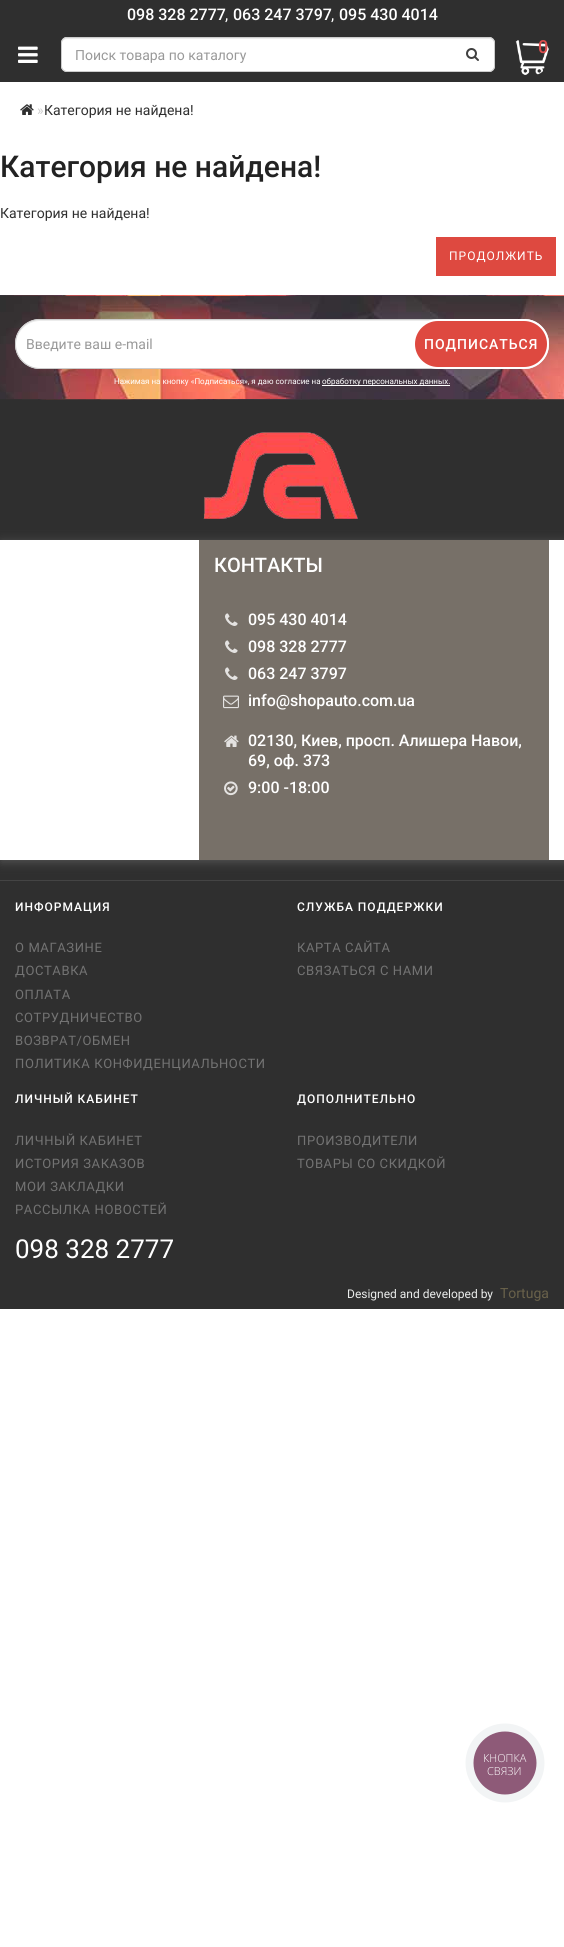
import math
import cairo


def use_color(cr, r, g, b):
  cr.set_source_rgb(r / 255, g / 255, b / 255)

def text(cr, x, y, s, family, size, color, bold=False, italic=False):
  cr.select_font_face(family, cairo.FONT_SLANT_ITALIC if italic else cairo.FONT_SLANT_NORMAL, cairo.FONT_WEIGHT_BOLD if bold else cairo.FONT_WEIGHT_NORMAL)
  cr.set_font_size(size)
  use_color(cr, *color)
  cr.move_to(x, y)
  cr.show_text(s)

def spaced_text(cr, x, y, s, letter, word):
  cr.move_to(x, y)
  for ch in s:
    cr.show_text(ch)
    cr.rel_move_to(letter + word * (ch == ' '), 0)

def box(cr, x, y, w, h, *color):
  use_color(cr, *color)
  cr.rectangle(x, y, w, h)
  cr.fill()

def round_rect(cr, x, y, w, h, r):
  cr.new_sub_path()
  for i, (u, v) in enumerate([(x + w - r, y + h - r), (x + r, y + h - r), (x + r, y + r), (x + w - r, y + r)]):
    cr.arc(u, v, r, i * math.pi / 2, (i + 1) * math.pi / 2)
  cr.close_path()

def shadow(cr, x, y, w, h, r, blur, alpha):
  cr.push_group_with_content(cairo.CONTENT_ALPHA)
  cr.set_operator(cairo.OPERATOR_SOURCE)
  for i in range(15, -16, -2):
    e = blur * i / 6
    if min(w, h) + 2 * e > 0:
      cr.set_source_rgba(0, 0, 0, alpha * math.erfc((i - 1) / 8.5) / 2)
      round_rect(cr, x - e, y - e, w + 2 * e, h + 2 * e, max(0, min(r + e + blur * .6, min(w, h) / 2 + e)))
      cr.fill()
  cr.mask(cr.pop_group())

def picture(cr, path, x, y, w, h):
  cr.save()
  cr.set_source_surface(cairo.ImageSurface.create_from_png(path), x, y)
  cr.rectangle(x, y, w, h)
  cr.fill()
  cr.restore()

def draw(cr):
  use_color(cr, 255, 255, 255)
  cr.paint()
  box(cr, 0, 0, 564, 82, 47, 47, 47)
  picture(cr, "img_01.png", 18, 46, 20, 17)
  use_color(cr, 255, 255, 255)
  round_rect(cr, 61, 37, 434, 35, 6)
  cr.fill()
  use_color(cr, 236, 236, 236)
  cr.new_path()
  cr.move_to(67, 39)
  cr.line_to(489, 39)
  cr.curve_to(492, 39, 494, 41, 494, 44)
  cr.curve_to(494, 41, 492, 38, 489, 38)
  cr.line_to(67, 38)
  cr.curve_to(64, 38, 62, 41, 62, 44)
  cr.curve_to(62, 41, 64, 39, 67, 39)
  cr.close_path()
  cr.fill()
  round_rect(cr, 61.5, 37.5, 433, 34, 5.5)
  use_color(cr, 204, 204, 204)
  cr.set_line_width(1)
  cr.stroke()
  picture(cr, "img_02.png", 466, 48, 13, 13)
  picture(cr, "img_03.png", 515, 40, 34, 35)
  picture(cr, "img_04.png", 20, 104, 14, 11)
  box(cr, 436, 237, 120, 39, 222, 73, 64)
  picture(cr, "img_05.png", 0, 295, 564, 105)
  use_color(cr, 255, 255, 255)
  round_rect(cr, 15, 319, 534, 50, 25)
  cr.fill()
  use_color(cr, 236, 236, 236)
  cr.new_path()
  cr.move_to(40, 321)
  cr.line_to(524, 321)
  cr.curve_to(537, 321, 548, 332, 548, 345)
  cr.curve_to(548, 331, 537, 320, 524, 320)
  cr.line_to(40, 320)
  cr.curve_to(27, 320, 16, 331, 16, 345)
  cr.curve_to(16, 332, 27, 321, 40, 321)
  cr.close_path()
  cr.fill()
  round_rect(cr, 15.5, 319.5, 533, 49, 24.5)
  use_color(cr, 204, 204, 204)
  cr.stroke()
  use_color(cr, 222, 73, 64)
  round_rect(cr, 414, 320, 134, 48, 24)
  cr.fill_preserve()
  use_color(cr, 255, 255, 255)
  cr.set_line_width(2)
  cr.stroke()
  box(cr, 322, 385, 128, 1, 255, 255, 255)
  box(cr, 0, 400, 564, 140, 47, 47, 47)
  picture(cr, "img_06.png", 203, 432, 155, 87)
  box(cr, 0, 860, 564, 449, 47, 47, 47)
  cr.save()
  cr.set_fill_rule(cairo.FILL_RULE_EVEN_ODD)
  cr.new_path()
  cr.move_to(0, 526)
  cr.line_to(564, 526)
  cr.line_to(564, 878)
  cr.line_to(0, 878)
  cr.close_path()
  cr.move_to(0, 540)
  cr.line_to(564, 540)
  cr.line_to(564, 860)
  cr.line_to(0, 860)
  cr.close_path()
  cr.clip()
  use_color(cr, 85, 85, 85)
  shadow(cr, 1, 542, 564, 320, 0, 5, 1)
  cr.restore()
  box(cr, 199, 540, 350, 320, 119, 112, 104)
  picture(cr, "img_07.png", 225, 613, 13, 13)
  picture(cr, "img_07.png", 225, 640, 13, 13)
  picture(cr, "img_07.png", 225, 667, 13, 13)
  picture(cr, "img_08.png", 223, 695, 16, 14)
  picture(cr, "img_09.png", 224, 735, 15, 12)
  picture(cr, "img_10.png", 224, 781, 14, 15)
  box(cr, 0, 880, 564, 1, 68, 68, 68)
  use_color(cr, 242, 244, 245)
  cr.arc(505, 1763, 39.5, 0, 2 * math.pi)
  cr.fill()
  use_color(cr, 142, 90, 120)
  cr.arc(505, 1763, 31.5, 0, 2 * math.pi)
  cr.fill()
  text(cr, 127, 20, "098 328 2777", "Roboto Medium", 16, (255, 255, 255))
  text(cr, 225, 20, ",", "Roboto", 16, (255, 255, 255))
  text(cr, 233, 20, "063 247 3797", "Roboto Medium", 16, (255, 255, 255))
  text(cr, 331, 20, ",", "Roboto", 16, (255, 255, 255))
  text(cr, 339, 20, "095 430 4014", "Roboto Medium", 16, (255, 255, 255))
  text(cr, 75, 60, "Поиск товара по каталогу", "Roboto", 14, (153, 153, 153))
  text(cr, 538, 53, "0", "Roboto Medium", 18, (222, 78, 78))
  text(cr, 37, 115, "»", "Roboto", 14, (204, 204, 204))
  text(cr, 44, 115, "Категория не найдена!", "Roboto", 14, (47, 47, 47))
  text(cr, 0, 177, "Категория не найдена!", "Roboto Medium", 30, (34, 34, 34))
  text(cr, 0, 218, "Категория не найдена!", "Roboto", 14, (47, 47, 47))
  cr.set_font_size(12)
  use_color(cr, 255, 255, 255)
  spaced_text(cr, 449, 260, "ПРОДОЛЖИТЬ", 1, 0)
  text(cr, 26, 349, "Введите ваш e-mail", "Roboto", 14, (153, 153, 153))
  cr.select_font_face("Roboto Medium")
  use_color(cr, 255, 255, 255)
  spaced_text(cr, 424, 349, "ПОДПИСАТЬСЯ", 1, 0)
  text(cr, 114, 384, "Нажимая на кнопку «Подписаться», я даю cогласие на", "Roboto", 8, (255, 255, 255))
  text(cr, 322, 384, "обработку персональных данных.", "Roboto", 8, (255, 255, 255))
  text(cr, 214, 572, "КОНТАКТЫ", "Roboto Medium", 20, (255, 255, 255))
  text(cr, 248, 625, "095 430 4014", "Roboto Medium", 16, (255, 255, 255))
  text(cr, 248, 652, "098 328 2777", "Roboto Medium", 16, (255, 255, 255))
  text(cr, 248, 679, "063 247 3797", "Roboto Medium", 16, (255, 255, 255))
  text(cr, 248, 706, "info@shopauto.com.ua", "Roboto Medium", 16, (255, 255, 255))
  text(cr, 248, 746, "02130, Киев, просп. Алишера Навои,", "Roboto Medium", 16, (255, 255, 255))
  text(cr, 248, 766, "69, оф. 373", "Roboto Medium", 16, (255, 255, 255))
  text(cr, 248, 793, "9:00 -18:00", "Roboto Medium", 16, (255, 255, 255))
  cr.set_font_size(12)
  spaced_text(cr, 15, 911, "ИНФОРМАЦИЯ", 1, 0)
  cr.select_font_face("Roboto")
  cr.set_font_size(13)
  use_color(cr, 115, 115, 115)
  spaced_text(cr, 15, 952, "О МАГАЗИНЕ", 0.6, 0)
  spaced_text(cr, 15, 975, "ДОСТАВКА", 0.6, 0)
  spaced_text(cr, 15, 999, "ОПЛАТА", 0.6, 0)
  spaced_text(cr, 15, 1022, "СОТРУДНИЧЕСТВО", 0.6, 0)
  spaced_text(cr, 15, 1045, "ВОЗВРАТ/ОБМЕН", 0.6, 0)
  spaced_text(cr, 15, 1068, "ПОЛИТИКА КОНФИДЕНЦИАЛЬНОСТИ", 0.6, 0)
  cr.select_font_face("Roboto Medium")
  cr.set_font_size(12)
  use_color(cr, 255, 255, 255)
  spaced_text(cr, 297, 911, "СЛУЖБА ПОДДЕРЖКИ", 1, 0)
  cr.select_font_face("Roboto")
  cr.set_font_size(13)
  use_color(cr, 115, 115, 115)
  spaced_text(cr, 297, 952, "КАРТА САЙТА", 0.6, 0)
  spaced_text(cr, 297, 975, "СВЯЗАТЬСЯ С НАМИ", 0.6, 0)
  cr.select_font_face("Roboto Medium")
  cr.set_font_size(12)
  use_color(cr, 255, 255, 255)
  spaced_text(cr, 15, 1103, "ЛИЧНЫЙ КАБИНЕТ", 1, 0)
  cr.select_font_face("Roboto")
  cr.set_font_size(13)
  use_color(cr, 115, 115, 115)
  spaced_text(cr, 15, 1145, "ЛИЧНЫЙ КАБИНЕТ", 0.6, 0)
  spaced_text(cr, 15, 1168, "ИСТОРИЯ ЗАКАЗОВ", 0.6, 0)
  spaced_text(cr, 15, 1191, "МОИ ЗАКЛАДКИ", 0.6, 0)
  spaced_text(cr, 15, 1214, "РАССЫЛКА НОВОСТЕЙ", 0.6, 0)
  cr.select_font_face("Roboto Medium")
  cr.set_font_size(12)
  use_color(cr, 255, 255, 255)
  spaced_text(cr, 297, 1103, "ДОПОЛНИТЕЛЬНО", 1, 0)
  cr.select_font_face("Roboto")
  cr.set_font_size(13)
  use_color(cr, 115, 115, 115)
  spaced_text(cr, 297, 1145, "ПРОИЗВОДИТЕЛИ", 0.6, 0)
  spaced_text(cr, 297, 1168, "ТОВАРЫ СО СКИДКОЙ", 0.6, 0)
  text(cr, 15, 1258, "098 328 2777", "Roboto", 26, (255, 255, 255))
  text(cr, 347, 1298, "Designed and developed by", "Roboto", 12, (235, 237, 236))
  text(cr, 500, 1298, "Tortuga", "Roboto", 14, (105, 97, 74))
  text(cr, 483, 1762, "КНОПКА", "Open Sans Light", 11, (255, 255, 255))
  text(cr, 487, 1775, "СВЯЗИ", "Open Sans Light", 11, (255, 255, 255))


surface = cairo.ImageSurface(cairo.FORMAT_RGB24, 564, 1947)
cr = cairo.Context(surface)
options = cairo.FontOptions()
options.set_hint_metrics(cairo.HINT_METRICS_OFF)
options.set_hint_style(cairo.HINT_STYLE_NONE)
cr.set_font_options(options)
cr.set_miter_limit(4)
draw(cr)
surface.write_to_png("out.png")
